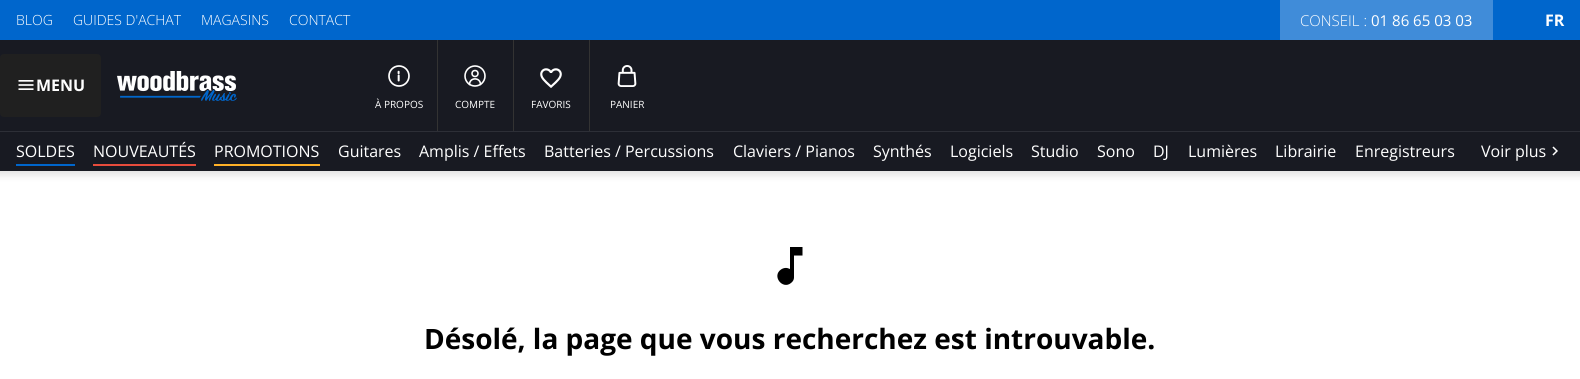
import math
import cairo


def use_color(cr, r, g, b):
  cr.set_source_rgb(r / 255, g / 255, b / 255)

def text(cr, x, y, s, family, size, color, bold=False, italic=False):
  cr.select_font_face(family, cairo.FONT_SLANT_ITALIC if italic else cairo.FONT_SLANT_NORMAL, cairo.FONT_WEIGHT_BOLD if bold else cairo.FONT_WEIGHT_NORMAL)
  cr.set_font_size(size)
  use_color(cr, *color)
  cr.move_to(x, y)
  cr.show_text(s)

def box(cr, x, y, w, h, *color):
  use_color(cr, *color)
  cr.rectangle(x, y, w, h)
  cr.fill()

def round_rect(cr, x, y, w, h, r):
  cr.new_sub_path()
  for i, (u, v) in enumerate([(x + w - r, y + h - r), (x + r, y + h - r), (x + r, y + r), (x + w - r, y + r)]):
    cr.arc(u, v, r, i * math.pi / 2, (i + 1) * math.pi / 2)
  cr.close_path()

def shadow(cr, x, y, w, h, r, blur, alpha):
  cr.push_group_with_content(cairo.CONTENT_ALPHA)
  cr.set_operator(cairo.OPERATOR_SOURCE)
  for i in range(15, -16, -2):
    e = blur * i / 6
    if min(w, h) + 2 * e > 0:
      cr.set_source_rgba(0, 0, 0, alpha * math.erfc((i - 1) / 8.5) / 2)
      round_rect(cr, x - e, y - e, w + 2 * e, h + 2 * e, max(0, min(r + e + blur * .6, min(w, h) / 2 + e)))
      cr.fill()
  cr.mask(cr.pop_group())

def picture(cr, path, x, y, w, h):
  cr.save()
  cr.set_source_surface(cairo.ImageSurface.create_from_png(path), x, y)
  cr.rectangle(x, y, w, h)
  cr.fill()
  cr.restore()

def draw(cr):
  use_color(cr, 255, 255, 255)
  cr.paint()
  box(cr, 0, 0, 1580, 40, 0, 102, 204)
  box(cr, 1280, 0, 213, 40, 64, 140, 217)
  use_color(cr, 0, 0, 0)
  shadow(cr, -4, 127, 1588, 48, 0, 4, 0.12)
  box(cr, 0, 40, 1580, 91, 24, 26, 34)
  use_color(cr, 32, 32, 32)
  round_rect(cr, 0, 54, 101, 63, 4)
  cr.fill()
  picture(cr, "img_01.png", 18, 80, 16, 10)
  picture(cr, "img_02.png", 117, 71, 120, 30)
  picture(cr, "img_03.png", 388, 65, 22, 22)
  box(cr, 437, 40, 1, 91, 51, 51, 51)
  cr.arc(475, 73.5, 3, 0, 2 * math.pi)
  use_color(cr, 255, 255, 255)
  cr.set_line_width(1.6)
  cr.stroke()
  cr.new_path()
  cr.move_to(480.5, 84.5)
  cr.curve_to(480.5, 77, 469.5, 77, 469.5, 84.5)
  cr.set_line_cap(cairo.LINE_CAP_ROUND)
  cr.stroke()
  cr.arc(475, 76, 10, 0, 2 * math.pi)
  cr.set_line_cap(cairo.LINE_CAP_BUTT)
  cr.stroke()
  box(cr, 513, 40, 1, 91, 51, 51, 51)
  picture(cr, "img_04.png", 540, 68, 22, 20)
  box(cr, 589, 40, 1, 91, 51, 51, 51)
  picture(cr, "img_05.png", 617, 65, 20, 22)
  box(cr, 0, 132, 1580, 39, 24, 26, 34)
  box(cr, 0, 131, 1580, 1, 45, 47, 55)
  box(cr, 16, 164, 59, 2, 0, 102, 204)
  box(cr, 93, 164, 103, 2, 231, 76, 60)
  box(cr, 214, 164, 106, 2, 255, 177, 39)
  picture(cr, "img_06.png", 1552, 146, 6, 10)
  use_color(cr, 0, 0, 0)
  cr.new_path()
  cr.move_to(790, 247)
  cr.line_to(802.5, 247)
  cr.line_to(802.5, 255.5)
  cr.line_to(794, 255.5)
  cr.line_to(794, 277.5)
  cr.curve_to(794, 279.5, 793, 281.5, 791, 283)
  cr.curve_to(782.5, 290, 771.5, 276, 781, 269.5)
  cr.curve_to(784, 267.5, 787, 267.5, 790, 269)
  cr.close_path()
  cr.fill()
  text(cr, 16, 25, "BLOG", "Open Sans Light", 14, (255, 255, 255))
  text(cr, 73, 25, "GUIDES D'ACHAT", "Open Sans Light", 14, (255, 255, 255))
  text(cr, 201, 25, "MAGASINS", "Open Sans Light", 14, (255, 255, 255))
  text(cr, 289, 25, "CONTACT", "Open Sans Light", 14, (255, 255, 255))
  text(cr, 1300, 26, "CONSEIL :", "Open Sans Light", 15, (255, 255, 255))
  text(cr, 1371, 26, "01 86 65 03 03", "Open Sans", 15, (255, 255, 255))
  text(cr, 1545, 26, "FR", "Open Sans", 16, (255, 255, 255), bold=True)
  text(cr, 36, 91, "MENU", "Open Sans", 16, (255, 255, 255), bold=True)
  text(cr, 375, 108, "À PROPOS", "Open Sans", 10, (255, 255, 255))
  text(cr, 455, 108, "COMPTE", "Open Sans", 10, (255, 255, 255))
  text(cr, 531, 108, "FAVORIS", "Open Sans", 10, (255, 255, 255))
  text(cr, 610, 108, "PANIER", "Open Sans", 10, (255, 255, 255))
  text(cr, 16, 157, "SOLDES", "Open Sans", 16, (255, 255, 255))
  text(cr, 93, 157, "NOUVEAUTÉS", "Open Sans", 16, (255, 255, 255))
  text(cr, 214, 157, "PROMOTIONS", "Open Sans", 16, (255, 255, 255))
  text(cr, 338, 157, "Guitares", "Open Sans", 16, (255, 255, 255))
  text(cr, 419, 157, "Amplis / Effets", "Open Sans", 16, (255, 255, 255))
  text(cr, 544, 157, "Batteries / Percussions", "Open Sans", 16, (255, 255, 255))
  text(cr, 733, 157, "Claviers / Pianos", "Open Sans", 16, (255, 255, 255))
  text(cr, 873, 157, "Synthés", "Open Sans", 16, (255, 255, 255))
  text(cr, 950, 157, "Logiciels", "Open Sans", 16, (255, 255, 255))
  text(cr, 1031, 157, "Studio", "Open Sans", 16, (255, 255, 255))
  text(cr, 1097, 157, "Sono", "Open Sans", 16, (255, 255, 255))
  text(cr, 1153, 157, "DJ", "Open Sans", 16, (255, 255, 255))
  text(cr, 1188, 157, "Lumières", "Open Sans", 16, (255, 255, 255))
  text(cr, 1275, 157, "Librairie", "Open Sans", 16, (255, 255, 255))
  text(cr, 1355, 157, "Enregistreurs", "Open Sans", 16, (255, 255, 255))
  text(cr, 1481, 157, "Voir plus", "Open Sans", 16, (255, 255, 255))
  text(cr, 424, 349, "Désolé, la page que vous recherchez est introuvable.", "Open Sans", 28, (0, 0, 0), bold=True)


surface = cairo.ImageSurface(cairo.FORMAT_RGB24, 1580, 379)
cr = cairo.Context(surface)
options = cairo.FontOptions()
options.set_hint_metrics(cairo.HINT_METRICS_OFF)
options.set_hint_style(cairo.HINT_STYLE_NONE)
cr.set_font_options(options)
cr.set_miter_limit(4)
draw(cr)
surface.write_to_png("out.png")
